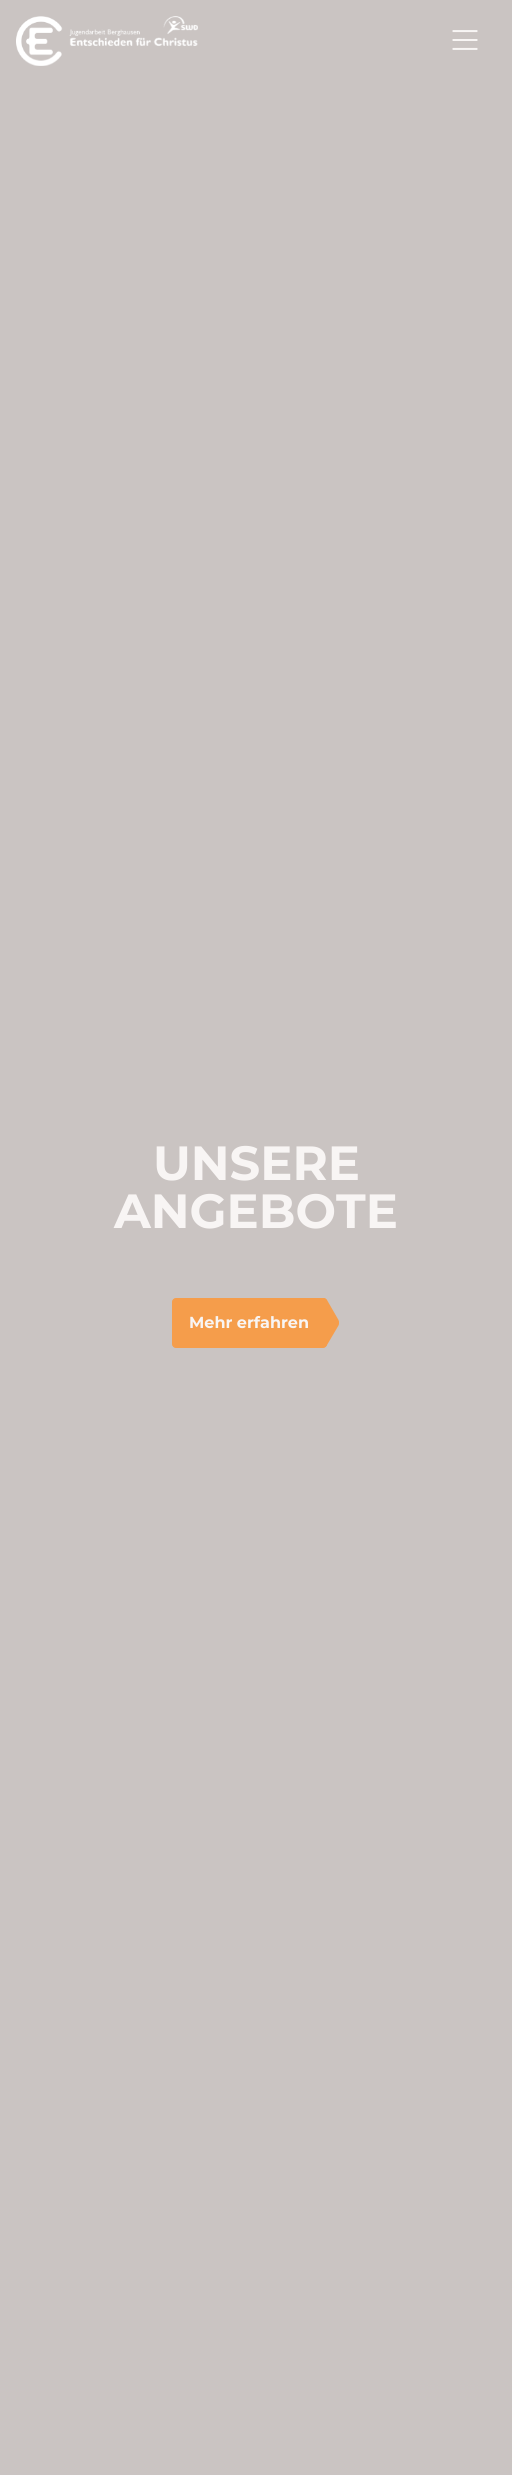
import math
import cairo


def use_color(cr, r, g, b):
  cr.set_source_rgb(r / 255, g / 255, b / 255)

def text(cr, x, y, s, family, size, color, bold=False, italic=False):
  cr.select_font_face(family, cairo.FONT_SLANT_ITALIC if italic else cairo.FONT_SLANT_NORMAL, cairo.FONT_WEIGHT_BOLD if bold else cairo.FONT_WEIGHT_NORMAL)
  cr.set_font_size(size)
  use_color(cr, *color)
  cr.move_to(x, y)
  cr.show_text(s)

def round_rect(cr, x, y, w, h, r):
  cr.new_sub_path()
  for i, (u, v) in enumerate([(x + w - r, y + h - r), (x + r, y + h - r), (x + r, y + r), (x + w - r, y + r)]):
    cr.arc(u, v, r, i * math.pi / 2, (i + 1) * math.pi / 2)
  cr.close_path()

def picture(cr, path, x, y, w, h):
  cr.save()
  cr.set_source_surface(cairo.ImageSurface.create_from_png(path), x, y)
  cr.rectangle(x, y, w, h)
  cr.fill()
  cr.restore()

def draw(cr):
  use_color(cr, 202, 196, 194)
  cr.paint()
  picture(cr, "img_01.png", 16, 16, 182, 50)
  picture(cr, "img_02.png", 452, 30, 26, 20)
  use_color(cr, 245, 157, 75)
  round_rect(cr, 172.5, 1298.5, 154, 49, 3.5)
  cr.fill_preserve()
  cr.set_line_width(1)
  cr.stroke()
  cr.new_path()
  cr.move_to(327, 1300)
  cr.line_to(338.5, 1320)
  cr.curve_to(339.5, 1322, 339, 1324.5, 337, 1325.5)
  cr.line_to(330, 1329.5)
  cr.curve_to(328, 1330.5, 326, 1330, 324.5, 1328)
  cr.line_to(313, 1308)
  cr.curve_to(312, 1306, 312.5, 1304, 314.5, 1302.5)
  cr.line_to(321.5, 1298.5)
  cr.curve_to(323.5, 1297.5, 326, 1298, 327, 1300)
  cr.close_path()
  cr.fill()
  cr.new_path()
  cr.move_to(313, 1337)
  cr.line_to(324.5, 1317.5)
  cr.curve_to(326, 1315.5, 328, 1314.5, 330, 1316)
  cr.line_to(337, 1320)
  cr.curve_to(339, 1321, 339.5, 1323.5, 338.5, 1325.5)
  cr.line_to(327, 1345)
  cr.curve_to(326, 1347, 323.5, 1348, 321.5, 1346.5)
  cr.line_to(314.5, 1342.5)
  cr.curve_to(312.5, 1341.5, 312, 1339, 313, 1337)
  cr.close_path()
  cr.fill()
  text(cr, 153, 1180, "UNSERE", "Montserrat", 48, (248, 245, 244), bold=True)
  text(cr, 114, 1228, "ANGEBOTE", "Montserrat", 48, (248, 245, 244), bold=True)
  text(cr, 189, 1328, "Mehr erfahren", "Montserrat", 16, (248, 245, 244), bold=True)


surface = cairo.ImageSurface(cairo.FORMAT_RGB24, 512, 2475)
cr = cairo.Context(surface)
options = cairo.FontOptions()
options.set_hint_metrics(cairo.HINT_METRICS_OFF)
options.set_hint_style(cairo.HINT_STYLE_NONE)
cr.set_font_options(options)
cr.set_miter_limit(4)
draw(cr)
surface.write_to_png("out.png")
